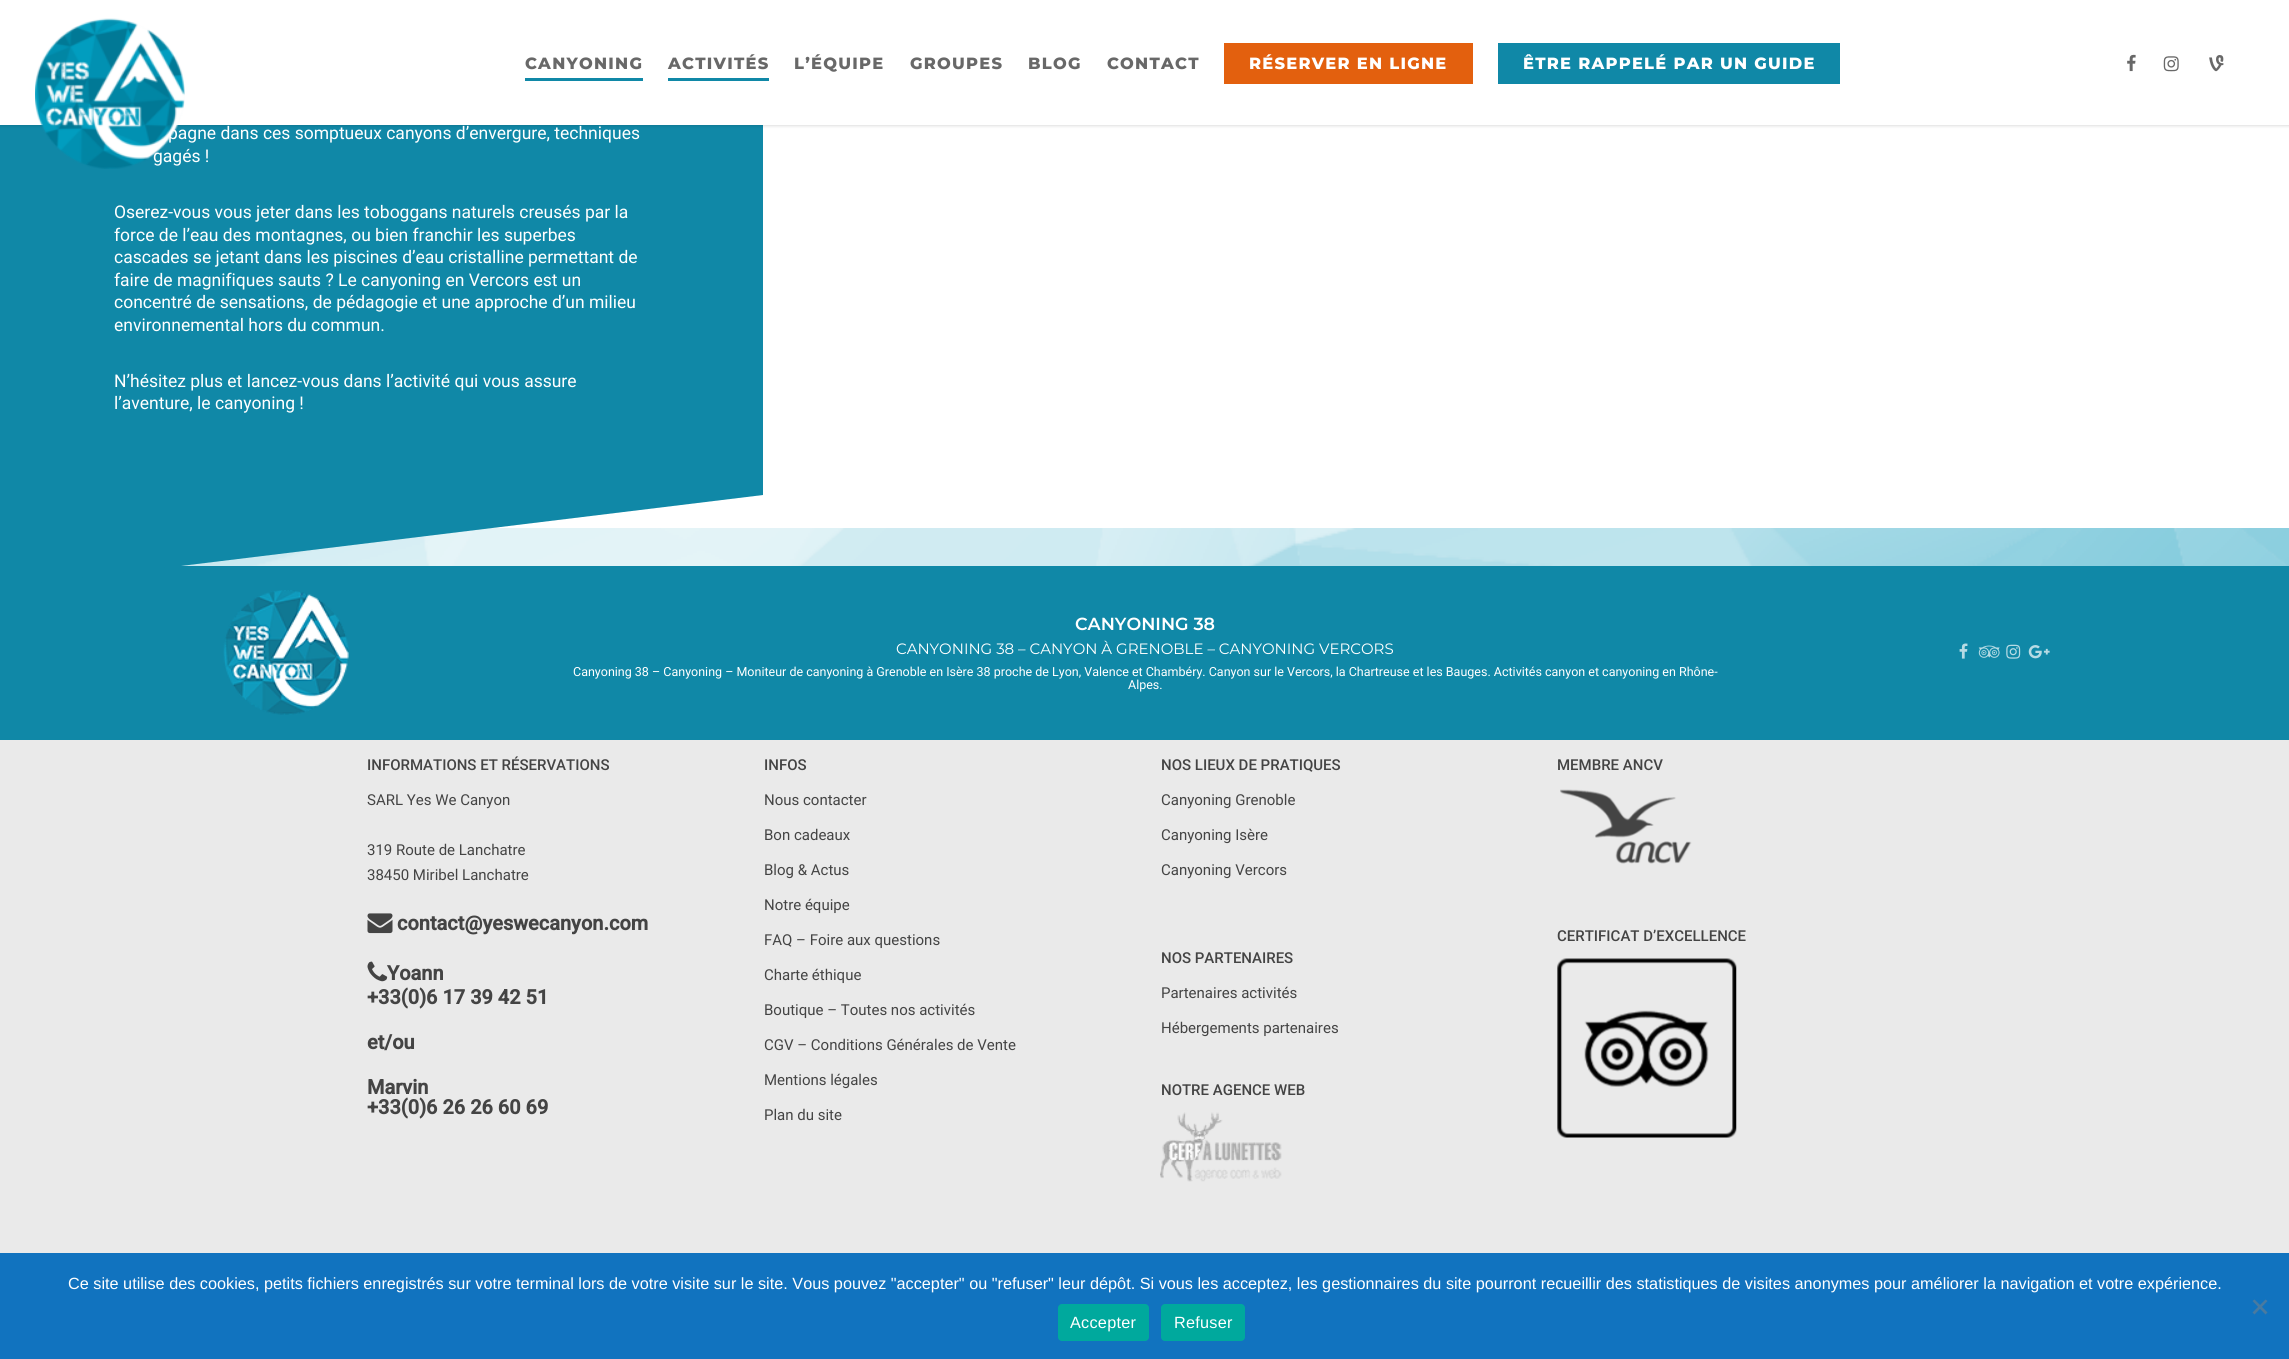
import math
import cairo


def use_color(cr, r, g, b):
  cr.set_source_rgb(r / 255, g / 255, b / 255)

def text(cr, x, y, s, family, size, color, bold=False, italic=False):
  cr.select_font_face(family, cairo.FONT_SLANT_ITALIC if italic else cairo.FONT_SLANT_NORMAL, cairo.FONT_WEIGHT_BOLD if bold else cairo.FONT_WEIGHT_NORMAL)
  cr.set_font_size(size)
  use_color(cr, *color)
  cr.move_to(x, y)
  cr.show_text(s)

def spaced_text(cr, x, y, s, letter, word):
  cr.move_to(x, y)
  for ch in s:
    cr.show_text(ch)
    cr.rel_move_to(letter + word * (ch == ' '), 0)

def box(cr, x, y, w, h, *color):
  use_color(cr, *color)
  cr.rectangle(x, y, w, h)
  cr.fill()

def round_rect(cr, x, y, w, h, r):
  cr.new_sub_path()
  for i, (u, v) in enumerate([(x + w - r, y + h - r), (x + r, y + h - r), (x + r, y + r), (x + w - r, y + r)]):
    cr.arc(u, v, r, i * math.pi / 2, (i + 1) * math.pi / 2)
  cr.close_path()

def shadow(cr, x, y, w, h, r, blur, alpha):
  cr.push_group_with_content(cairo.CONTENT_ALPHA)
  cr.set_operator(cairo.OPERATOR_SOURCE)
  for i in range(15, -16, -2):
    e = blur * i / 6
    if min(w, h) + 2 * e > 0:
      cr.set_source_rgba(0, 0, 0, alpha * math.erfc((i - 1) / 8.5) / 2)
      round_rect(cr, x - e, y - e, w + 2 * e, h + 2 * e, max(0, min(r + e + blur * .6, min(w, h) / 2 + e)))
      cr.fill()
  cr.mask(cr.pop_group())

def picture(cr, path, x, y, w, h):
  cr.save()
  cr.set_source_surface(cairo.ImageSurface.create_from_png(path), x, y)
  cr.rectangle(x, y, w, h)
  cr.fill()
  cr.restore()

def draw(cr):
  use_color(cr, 234, 234, 234)
  cr.paint()
  box(cr, 492, 125, 1797, 403, 255, 255, 255)
  picture(cr, "img_05.png", 181, 528, 2108, 38)
  box(cr, 0, 566, 2289, 174, 16, 136, 167)
  cr.new_path()
  cr.move_to(0, -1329)
  cr.line_to(763, -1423)
  cr.line_to(763, 495)
  cr.line_to(0, 588)
  cr.close_path()
  cr.fill()
  use_color(cr, 0, 0, 0)
  shadow(cr, 0, 0, 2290, 125, 0, 2, 0.22)
  box(cr, 0, 0, 2289, 125, 255, 255, 255)
  box(cr, 525, 78, 118, 3, 16, 136, 167)
  box(cr, 668, 78, 101, 3, 16, 136, 167)
  box(cr, 1224, 43, 249, 41, 227, 96, 14)
  box(cr, 1498, 43, 342, 41, 16, 136, 167)
  picture(cr, "img_02.png", 2127, 54, 9, 18)
  picture(cr, "img_03.png", 2163, 56, 16, 16)
  picture(cr, "img_04.png", 2209, 55, 15, 17)
  picture(cr, "img_06.png", 223, 590, 126, 125)
  picture(cr, "img_07.png", 1959, 643, 9, 16)
  picture(cr, "img_08.png", 1978, 645, 22, 13)
  picture(cr, "img_09.png", 2006, 644, 15, 15)
  picture(cr, "img_10.png", 2028, 645, 22, 14)
  picture(cr, "img_11.png", 367, 913, 26, 21)
  picture(cr, "img_13.png", 1160, 1112, 122, 70)
  picture(cr, "img_14.png", 1560, 789, 132, 75)
  picture(cr, "img_15.png", 1557, 958, 180, 180)
  box(cr, 0, 1253, 2289, 106, 17, 115, 191)
  use_color(cr, 73, 122, 160)
  cr.new_path()
  cr.move_to(2265.5, 1299.5)
  cr.line_to(2267.5, 1301)
  cr.line_to(2254.5, 1314.5)
  cr.line_to(2252.5, 1312.5)
  cr.close_path()
  cr.fill()
  cr.new_path()
  cr.move_to(2252.5, 1301)
  cr.line_to(2254.5, 1299.5)
  cr.line_to(2267.5, 1312.5)
  cr.line_to(2265.5, 1314.5)
  cr.close_path()
  cr.fill()
  use_color(cr, 0, 169, 157)
  round_rect(cr, 1058, 1304, 91, 37, 4)
  cr.fill()
  round_rect(cr, 1161, 1304, 84, 37, 4)
  cr.fill()
  cr.select_font_face("Montserrat ExtraBold")
  cr.set_font_size(16.25)
  use_color(cr, 104, 104, 104)
  spaced_text(cr, 525, 69, "CANYONING", 1.25, 0)
  spaced_text(cr, 668, 69, "ACTIVITÉS", 1.25, 0)
  spaced_text(cr, 794, 69, "L’ÉQUIPE", 1.25, 0)
  spaced_text(cr, 910, 69, "GROUPES", 1.25, 0)
  spaced_text(cr, 1028, 69, "BLOG", 1.25, 0)
  spaced_text(cr, 1107, 69, "CONTACT", 1.25, 0)
  use_color(cr, 255, 255, 255)
  spaced_text(cr, 1249, 69, "RÉSERVER EN LIGNE", 1.25, 0)
  spaced_text(cr, 1523, 69, "ÊTRE RAPPELÉ PAR UN GUIDE", 1.25, 0)
  text(cr, 168, 139, "pagne dans ces somptueux canyons d’envergure, techniques", "Roboto", 17.5, (255, 255, 255))
  text(cr, 153, 162, "gagés !", "Roboto", 17.5, (255, 255, 255))
  picture(cr, "img_01.png", 35, 18, 150, 151)
  text(cr, 114, 218, "Oserez-vous vous jeter dans les toboggans naturels creusés par la", "Roboto", 17.5, (255, 255, 255))
  text(cr, 114, 241, "force de l’eau des montagnes, ou bien franchir les superbes", "Roboto", 17.5, (255, 255, 255))
  text(cr, 114, 263, "cascades se jetant dans les piscines d’eau cristalline permettant de", "Roboto", 17.5, (255, 255, 255))
  text(cr, 114, 286, "faire de magnifiques sauts ? Le canyoning en Vercors est un", "Roboto", 17.5, (255, 255, 255))
  text(cr, 114, 308, "concentré de sensations, de pédagogie et une approche d’un milieu", "Roboto", 17.5, (255, 255, 255))
  text(cr, 114, 331, "environnemental hors du commun.", "Roboto", 17.5, (255, 255, 255))
  text(cr, 114, 387, "N’hésitez plus et lancez-vous dans l’activité qui vous assure", "Roboto", 17.5, (255, 255, 255))
  text(cr, 114, 409, "l’aventure, le canyoning !", "Roboto", 17.5, (255, 255, 255))
  text(cr, 1075, 630, "CANYONING 38", "Montserrat SemiBold", 17.5, (255, 255, 255))
  text(cr, 896, 654, "CANYONING 38 – CANYON À GRENOBLE – CANYONING VERCORS", "Montserrat", 15, (255, 255, 255))
  text(cr, 573, 676, "Canyoning 38 – Canyoning – Moniteur de canyoning à Grenoble en Isère 38 proche de Lyon, Valence et Chambéry. Canyon sur le Vercors, la Chartreuse et les Bauges. Activités canyon et canyoning en Rhône-", "Roboto", 12.5, (255, 255, 255))
  text(cr, 1128, 689, "Alpes.", "Roboto", 12.5, (255, 255, 255))
  text(cr, 367, 770, "INFORMATIONS ET RÉSERVATIONS", "Roboto Medium", 15, (68, 68, 68))
  text(cr, 367, 805, "SARL Yes We Canyon", "Roboto", 15, (68, 68, 68))
  text(cr, 367, 855, "319 Route de Lanchatre", "Roboto", 15, (68, 68, 68))
  text(cr, 367, 880, "38450 Miribel Lanchatre", "Roboto", 15, (68, 68, 68))
  text(cr, 397, 930, "contact@yeswecanyon.com", "Roboto", 20, (68, 68, 68), bold=True)
  text(cr, 387, 980, "Yoann", "Roboto", 20, (68, 68, 68), bold=True)
  picture(cr, "img_12.png", 367, 961, 21, 21)
  text(cr, 367, 1004, "+33(0)6 17 39 42 51", "Roboto", 20, (68, 68, 68), bold=True)
  text(cr, 367, 1049, "et/ou", "Roboto", 20, (68, 68, 68), bold=True)
  text(cr, 367, 1094, "Marvin", "Roboto", 20, (68, 68, 68), bold=True)
  text(cr, 367, 1114, "+33(0)6 26 26 60 69", "Roboto", 20, (68, 68, 68), bold=True)
  text(cr, 764, 770, "INFOS", "Roboto Medium", 15, (68, 68, 68))
  text(cr, 764, 805, "Nous contacter", "Roboto", 15, (68, 68, 68))
  text(cr, 764, 840, "Bon cadeaux", "Roboto", 15, (68, 68, 68))
  text(cr, 764, 875, "Blog & Actus", "Roboto", 15, (68, 68, 68))
  text(cr, 764, 910, "Notre équipe", "Roboto", 15, (68, 68, 68))
  text(cr, 764, 945, "FAQ – Foire aux questions", "Roboto", 15, (68, 68, 68))
  text(cr, 764, 980, "Charte éthique", "Roboto", 15, (68, 68, 68))
  text(cr, 764, 1015, "Boutique – Toutes nos activités", "Roboto", 15, (68, 68, 68))
  text(cr, 764, 1050, "CGV – Conditions Générales de Vente", "Roboto", 15, (68, 68, 68))
  text(cr, 764, 1085, "Mentions légales", "Roboto", 15, (68, 68, 68))
  text(cr, 764, 1120, "Plan du site", "Roboto", 15, (68, 68, 68))
  text(cr, 1161, 770, "NOS LIEUX DE PRATIQUES", "Roboto Medium", 15, (68, 68, 68))
  text(cr, 1161, 805, "Canyoning Grenoble", "Roboto", 15, (68, 68, 68))
  text(cr, 1161, 840, "Canyoning Isère", "Roboto", 15, (68, 68, 68))
  text(cr, 1161, 875, "Canyoning Vercors", "Roboto", 15, (68, 68, 68))
  text(cr, 1161, 963, "NOS PARTENAIRES", "Roboto Medium", 15, (68, 68, 68))
  text(cr, 1161, 998, "Partenaires activités", "Roboto", 15, (68, 68, 68))
  text(cr, 1161, 1033, "Hébergements partenaires", "Roboto", 15, (68, 68, 68))
  text(cr, 1161, 1095, "NOTRE AGENCE WEB", "Roboto Medium", 15, (68, 68, 68))
  text(cr, 1557, 770, "MEMBRE ANCV", "Roboto Medium", 15, (68, 68, 68))
  text(cr, 1557, 941, "CERTIFICAT D’EXCELLENCE", "Roboto Medium", 15, (68, 68, 68))
  text(cr, 68, 1289, "Ce site utilise des cookies, petits fichiers enregistrés sur votre terminal lors de votre visite sur le site. Vous pouvez \"accepter\" ou \"refuser\" leur dépôt. Si vous les acceptez, les gestionnaires du site pourront recueillir des statistiques de visites anonymes pour améliorer la navigation et votre expérience.", "Liberation Sans", 16.25, (255, 255, 255))
  spaced_text(cr, 1070, 1328, "Accepter", 0.25, 0)
  spaced_text(cr, 1174, 1328, "Refuser", 0.25, 0)


surface = cairo.ImageSurface(cairo.FORMAT_RGB24, 2289, 1359)
cr = cairo.Context(surface)
options = cairo.FontOptions()
options.set_hint_metrics(cairo.HINT_METRICS_OFF)
options.set_hint_style(cairo.HINT_STYLE_NONE)
cr.set_font_options(options)
cr.set_miter_limit(4)
draw(cr)
surface.write_to_png("out.png")
